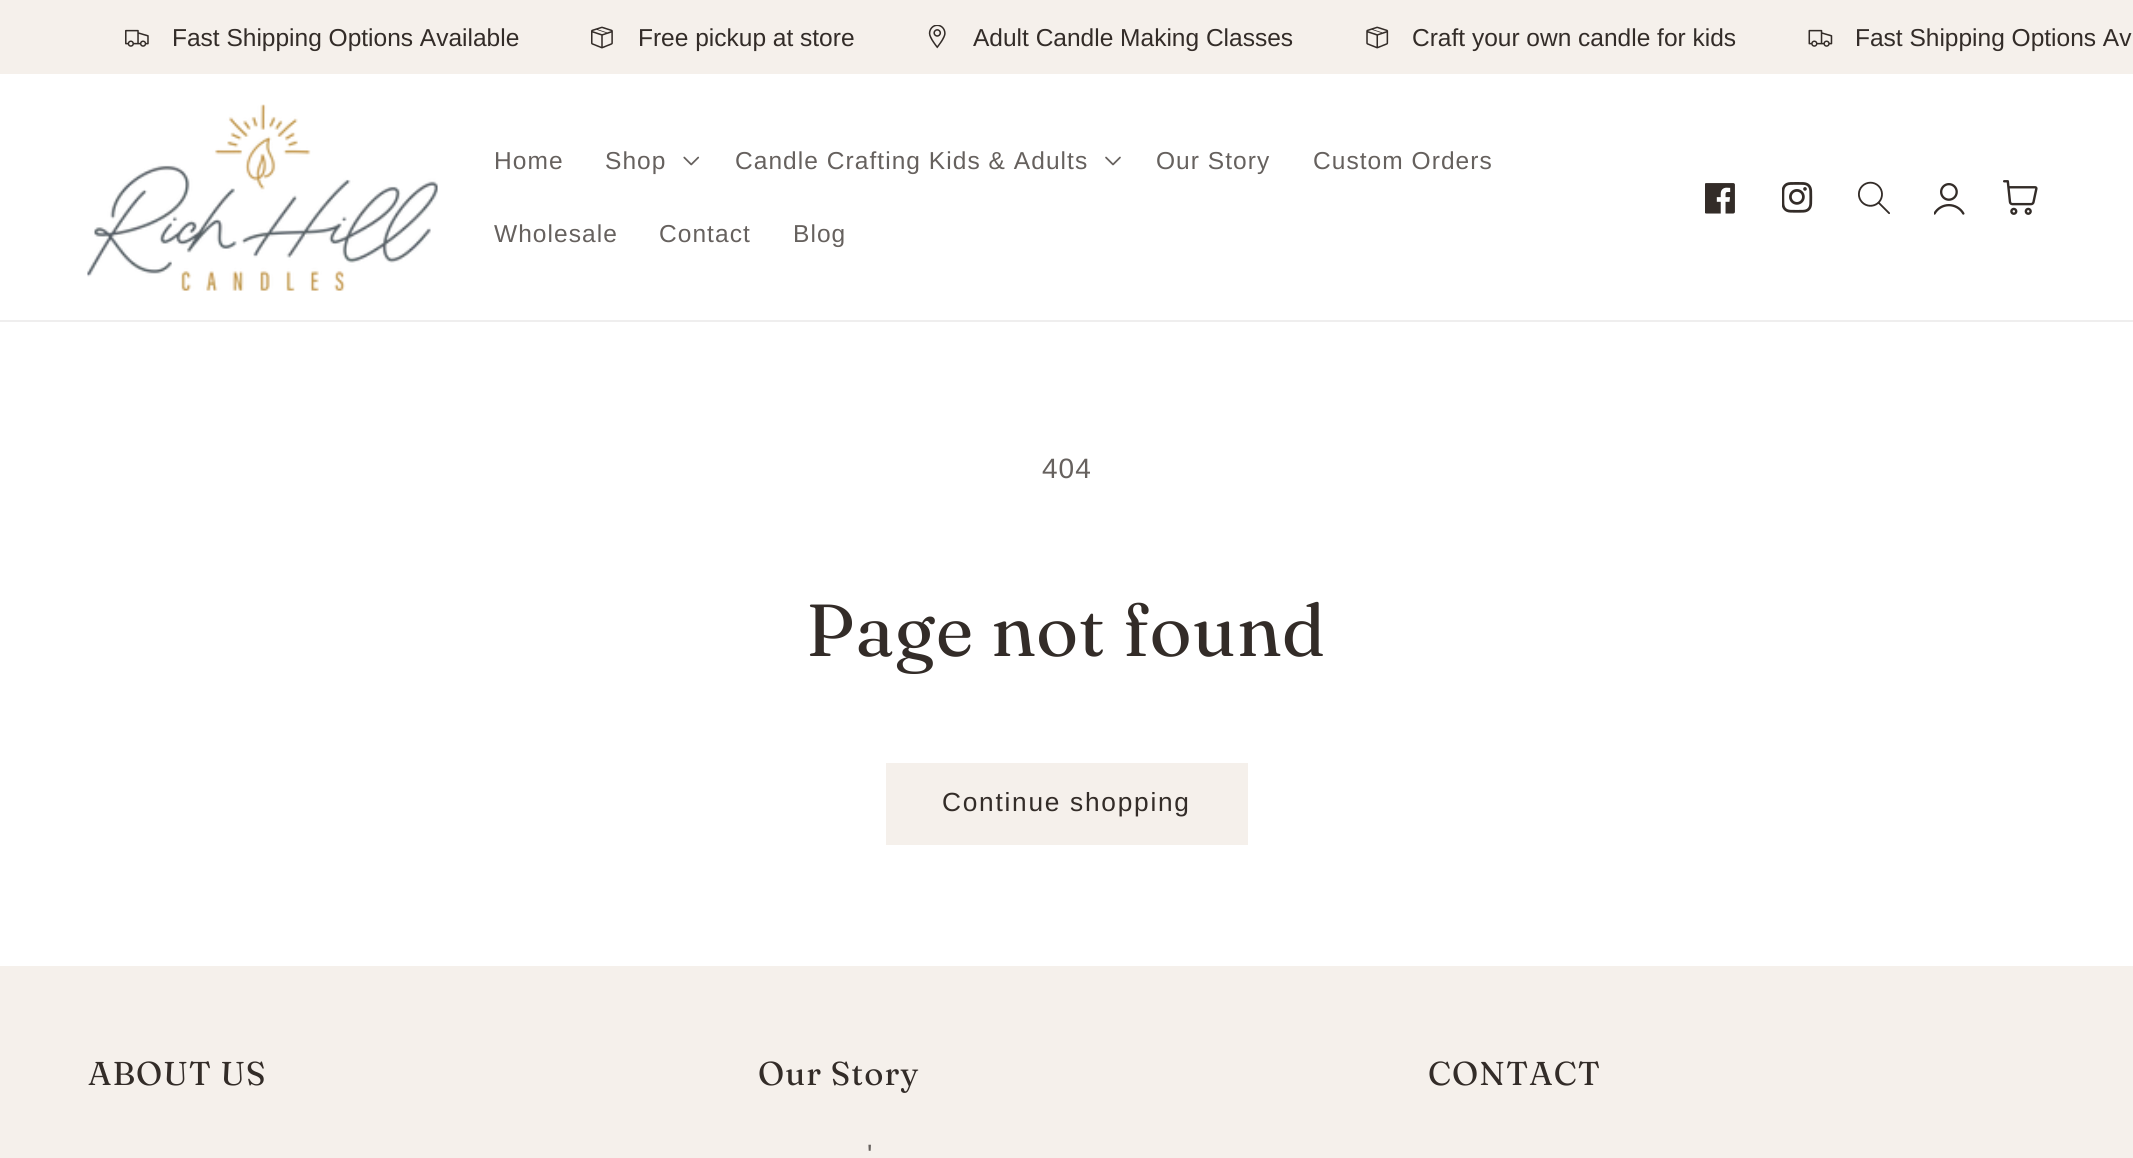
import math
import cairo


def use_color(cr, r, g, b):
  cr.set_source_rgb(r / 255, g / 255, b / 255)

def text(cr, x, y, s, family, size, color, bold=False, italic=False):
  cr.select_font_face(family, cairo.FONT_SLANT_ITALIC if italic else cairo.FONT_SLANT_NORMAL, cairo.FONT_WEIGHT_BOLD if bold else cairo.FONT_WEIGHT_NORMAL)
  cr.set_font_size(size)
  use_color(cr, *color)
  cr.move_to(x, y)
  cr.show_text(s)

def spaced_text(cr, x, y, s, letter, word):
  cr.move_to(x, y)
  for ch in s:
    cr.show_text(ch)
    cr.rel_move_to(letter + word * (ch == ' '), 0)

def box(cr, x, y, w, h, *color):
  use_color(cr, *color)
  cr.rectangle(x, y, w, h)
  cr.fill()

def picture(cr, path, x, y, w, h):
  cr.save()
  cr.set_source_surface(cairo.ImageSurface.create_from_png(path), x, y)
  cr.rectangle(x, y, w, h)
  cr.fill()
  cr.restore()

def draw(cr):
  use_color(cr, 255, 255, 255)
  cr.paint()
  box(cr, 0, 0, 2133, 74, 245, 240, 235)
  picture(cr, "img_01.png", 125, 29, 24, 18)
  picture(cr, "img_02.png", 591, 26, 22, 23)
  picture(cr, "img_03.png", 928, 25, 18, 24)
  picture(cr, "img_04.png", 1366, 26, 23, 23)
  picture(cr, "img_05.png", 1808, 29, 25, 18)
  box(cr, 0, 320, 2133, 2, 239, 238, 238)
  picture(cr, "img_06.png", 87, 104, 351, 187)
  picture(cr, "img_07.png", 683, 156, 17, 10)
  picture(cr, "img_08.png", 1105, 156, 16, 10)
  picture(cr, "img_09.png", 1705, 183, 30, 31)
  picture(cr, "img_10.png", 1782, 182, 31, 31)
  picture(cr, "img_11.png", 1858, 181, 32, 34)
  picture(cr, "img_12.png", 1934, 183, 31, 32)
  picture(cr, "img_13.png", 2003, 180, 35, 35)
  cr.rectangle(887, 764, 360, 80)
  use_color(cr, 245, 240, 235)
  cr.stroke()
  box(cr, 888, 765, 358, 78, 245, 240, 235)
  box(cr, 0, 966, 2133, 192, 245, 240, 235)
  text(cr, 172, 46, "Fast Shipping Options Available", "Arimo", 24.5, (51, 44, 40))
  text(cr, 638, 46, "Free pickup at store", "Arimo", 24.5, (51, 44, 40))
  text(cr, 973, 46, "Adult Candle Making Classes", "Arimo", 24.5, (51, 44, 40))
  text(cr, 1412, 46, "Craft your own candle for kids", "Arimo", 24.5, (51, 44, 40))
  text(cr, 1855, 46, "Fast Shipping Options Av", "Arimo", 24.5, (51, 44, 40))
  use_color(cr, 102, 97, 94)
  spaced_text(cr, 494, 169, "Home", 1.05, 0)
  spaced_text(cr, 605, 169, "Shop", 1.05, 0)
  spaced_text(cr, 735, 169, "Candle Crafting Kids & Adults", 1.05, 0)
  spaced_text(cr, 1156, 169, "Our Story", 1.05, 0)
  spaced_text(cr, 1313, 169, "Custom Orders", 1.05, 0)
  spaced_text(cr, 494, 242, "Wholesale", 1.05, 0)
  spaced_text(cr, 659, 242, "Contact", 1.05, 0)
  spaced_text(cr, 793, 242, "Blog", 1.05, 0)
  cr.set_font_size(28)
  spaced_text(cr, 1042, 478, "404", 1.05, 0)
  cr.select_font_face("Fraunces")
  cr.set_font_size(73.5)
  use_color(cr, 51, 44, 40)
  spaced_text(cr, 806, 656, "Page not found", 1.1, 0)
  cr.select_font_face("Arimo")
  cr.set_font_size(26.25)
  spaced_text(cr, 942, 811, "Continue shopping", 1.75, 0)
  cr.select_font_face("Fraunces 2")
  cr.set_font_size(33)
  spaced_text(cr, 88, 1085, "ABOUT US", 1.1, 0)
  spaced_text(cr, 758, 1085, "Our Story", 1.1, 0)
  cr.select_font_face("Arimo")
  cr.set_font_size(28)
  use_color(cr, 102, 97, 94)
  spaced_text(cr, 867, 1164, "'", 1.05, 0)
  cr.select_font_face("Fraunces 2")
  cr.set_font_size(33)
  use_color(cr, 51, 44, 40)
  spaced_text(cr, 1428, 1085, "CONTACT", 1.1, 0)


surface = cairo.ImageSurface(cairo.FORMAT_RGB24, 2133, 1158)
cr = cairo.Context(surface)
options = cairo.FontOptions()
options.set_hint_metrics(cairo.HINT_METRICS_OFF)
options.set_hint_style(cairo.HINT_STYLE_NONE)
cr.set_font_options(options)
cr.set_miter_limit(4)
draw(cr)
surface.write_to_png("out.png")
